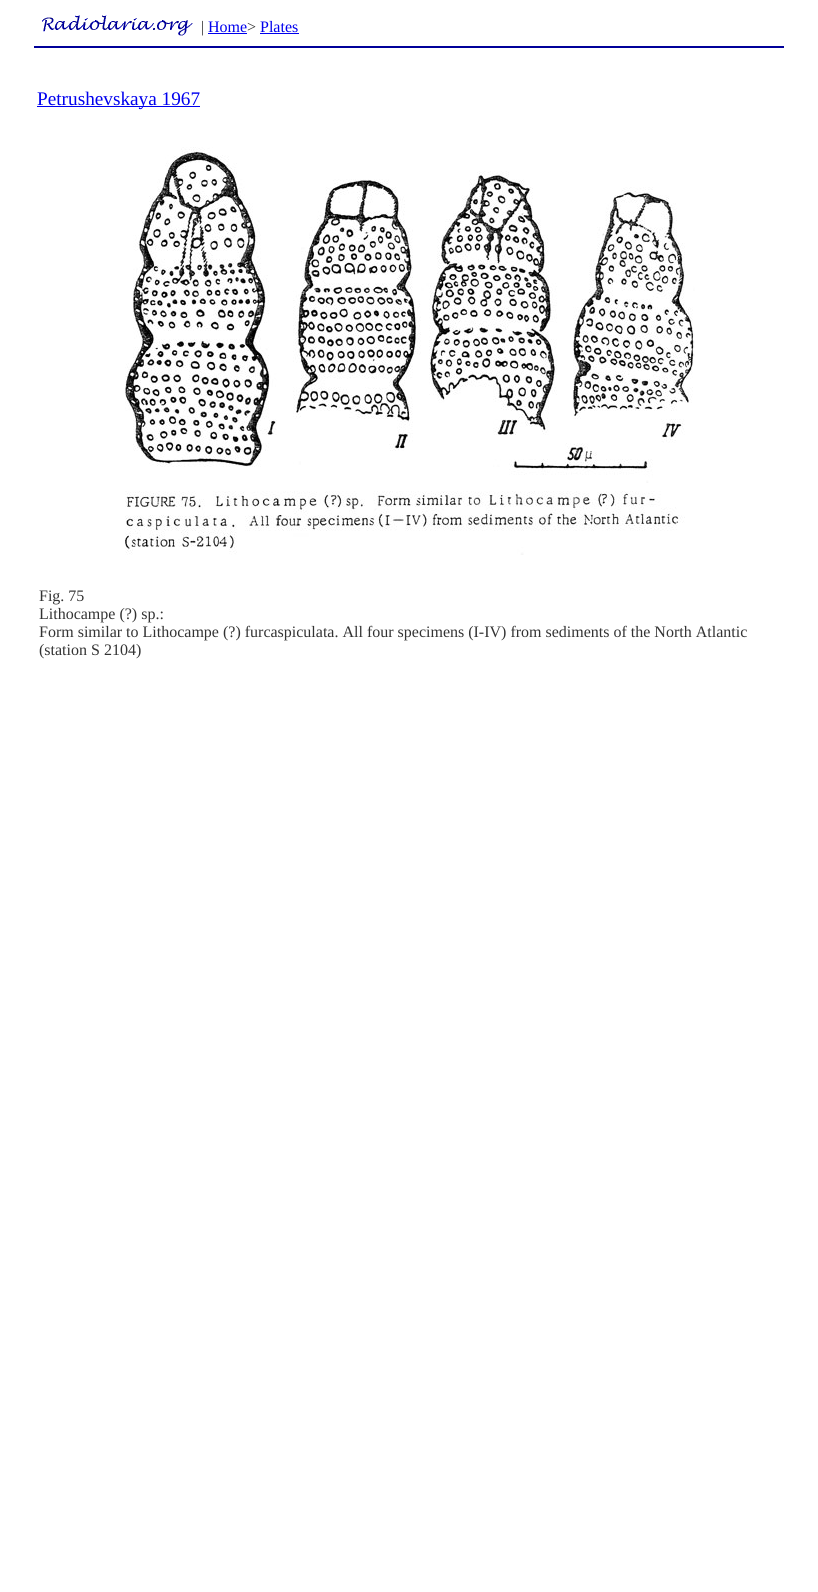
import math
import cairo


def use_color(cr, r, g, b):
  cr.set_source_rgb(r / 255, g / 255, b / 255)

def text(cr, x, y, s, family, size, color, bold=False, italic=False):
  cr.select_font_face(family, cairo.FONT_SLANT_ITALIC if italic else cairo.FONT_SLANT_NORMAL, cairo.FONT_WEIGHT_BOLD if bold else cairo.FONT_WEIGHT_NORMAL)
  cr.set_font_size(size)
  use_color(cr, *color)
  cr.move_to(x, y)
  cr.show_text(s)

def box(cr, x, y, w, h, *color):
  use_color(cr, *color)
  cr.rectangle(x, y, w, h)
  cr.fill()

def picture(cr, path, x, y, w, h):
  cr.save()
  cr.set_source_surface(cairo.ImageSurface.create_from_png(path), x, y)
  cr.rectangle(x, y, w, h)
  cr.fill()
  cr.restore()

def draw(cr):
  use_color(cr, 255, 255, 255)
  cr.paint()
  picture(cr, "img_01.png", 42, 15, 151, 21)
  box(cr, 208, 33, 39, 1, 0, 0, 238)
  box(cr, 260, 33, 39, 1, 0, 0, 238)
  box(cr, 34, 46, 750, 2, 0, 0, 153)
  box(cr, 37, 106, 163, 1, 0, 0, 238)
  picture(cr, "img_02.png", 125, 147, 570, 408)
  text(cr, 201, 32, "|", "Liberation Serif", 16, (51, 51, 51))
  text(cr, 208, 32, "Home", "Liberation Serif", 16, (0, 0, 238))
  text(cr, 247, 32, ">", "Liberation Serif", 16, (51, 51, 51))
  text(cr, 260, 32, "Plates", "Liberation Serif", 16, (0, 0, 238))
  text(cr, 37, 105, "Petrushevskaya 1967", "Liberation Serif", 19.25, (0, 0, 238))
  text(cr, 39, 601, "Fig. 75", "Liberation Serif", 16, (51, 51, 51))
  text(cr, 39, 619, "Lithocampe (?) sp.:", "Liberation Serif", 16, (51, 51, 51))
  text(cr, 39, 637, "Form similar to Lithocampe (?) furcaspiculata. All four specimens (I-IV) from sediments of the North Atlantic", "Liberation Serif", 16, (51, 51, 51))
  text(cr, 39, 655, "(station S 2104)", "Liberation Serif", 16, (51, 51, 51))


surface = cairo.ImageSurface(cairo.FORMAT_RGB24, 818, 1592)
cr = cairo.Context(surface)
options = cairo.FontOptions()
options.set_hint_metrics(cairo.HINT_METRICS_OFF)
options.set_hint_style(cairo.HINT_STYLE_NONE)
cr.set_font_options(options)
cr.set_miter_limit(4)
draw(cr)
surface.write_to_png("out.png")
